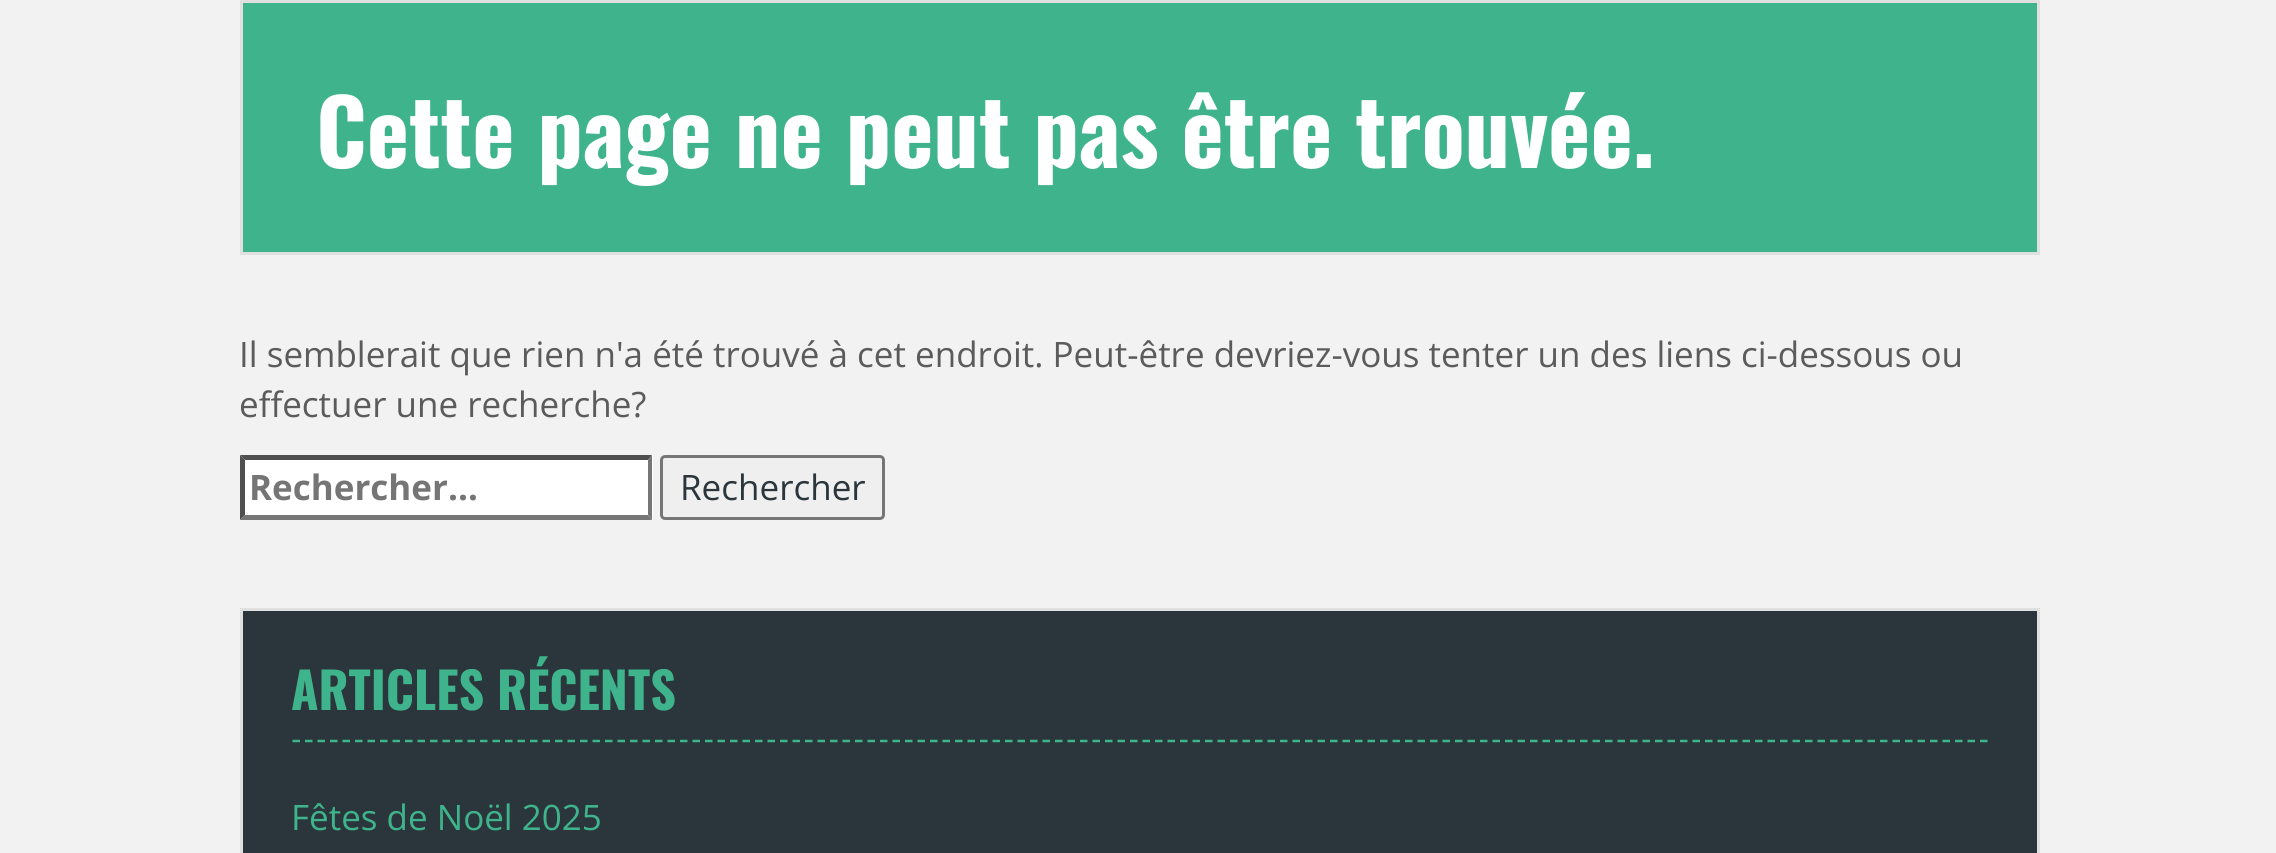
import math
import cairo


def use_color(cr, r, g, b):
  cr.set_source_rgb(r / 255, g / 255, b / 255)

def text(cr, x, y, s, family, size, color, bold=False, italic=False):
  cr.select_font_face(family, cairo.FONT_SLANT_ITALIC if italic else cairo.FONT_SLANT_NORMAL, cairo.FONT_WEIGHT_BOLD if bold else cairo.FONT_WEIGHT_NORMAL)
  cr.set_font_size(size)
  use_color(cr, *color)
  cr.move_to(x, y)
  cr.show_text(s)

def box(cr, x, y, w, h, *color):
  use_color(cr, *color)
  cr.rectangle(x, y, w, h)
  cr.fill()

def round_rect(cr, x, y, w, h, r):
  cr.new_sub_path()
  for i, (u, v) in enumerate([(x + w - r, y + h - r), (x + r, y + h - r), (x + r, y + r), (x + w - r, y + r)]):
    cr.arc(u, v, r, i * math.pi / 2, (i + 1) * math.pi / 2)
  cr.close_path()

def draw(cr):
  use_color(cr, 242, 242, 242)
  cr.paint()
  use_color(cr, 63, 180, 140)
  cr.rectangle(241.5, 1.5, 1797, 252)
  cr.fill_preserve()
  use_color(cr, 224, 224, 224)
  cr.set_line_width(3)
  cr.stroke()
  box(cr, 240, 455, 413, 65, 255, 255, 255)
  use_color(cr, 79, 79, 79)
  cr.new_path()
  cr.move_to(240, 455)
  cr.line_to(652, 455)
  cr.line_to(648, 460)
  cr.line_to(245, 460)
  cr.close_path()
  cr.fill()
  use_color(cr, 118, 118, 118)
  cr.new_path()
  cr.move_to(652, 455)
  cr.line_to(652, 520)
  cr.line_to(648, 515)
  cr.line_to(648, 460)
  cr.close_path()
  cr.fill()
  cr.new_path()
  cr.move_to(652, 520)
  cr.line_to(240, 520)
  cr.line_to(245, 515)
  cr.line_to(648, 515)
  cr.close_path()
  cr.fill()
  use_color(cr, 79, 79, 79)
  cr.new_path()
  cr.move_to(240, 520)
  cr.line_to(240, 455)
  cr.line_to(245, 460)
  cr.line_to(245, 515)
  cr.close_path()
  cr.fill()
  use_color(cr, 239, 239, 239)
  round_rect(cr, 661.5, 456.5, 222, 62, 3.5)
  cr.fill_preserve()
  use_color(cr, 118, 118, 118)
  cr.stroke()
  use_color(cr, 42, 54, 59)
  cr.rectangle(241.5, 609.5, 1797, 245)
  cr.fill_preserve()
  use_color(cr, 224, 224, 224)
  cr.stroke()
  cr.new_path()
  cr.move_to(292.5, 741)
  cr.line_to(1987.5, 741)
  use_color(cr, 63, 180, 140)
  cr.set_line_width(2.5)
  cr.set_dash([7.5, 5])
  cr.stroke()
  text(cr, 316, 168, "Cette page ne peut pas être trouvée.", "Oswald", 90, (255, 255, 255), bold=True)
  text(cr, 239, 367, "Il semblerait que rien n'a été trouvé à cet endroit. Peut-être devriez-vous tenter un des liens ci-dessous ou", "Open Sans", 35, (91, 91, 91))
  text(cr, 239, 417, "effectuer une recherche?", "Open Sans", 35, (91, 91, 91))
  text(cr, 249, 500, "Rechercher…", "Open Sans", 35, (117, 117, 117), bold=True)
  text(cr, 680, 500, "Rechercher", "Open Sans", 35, (42, 54, 59))
  text(cr, 291, 710, "ARTICLES RÉCENTS", "Oswald", 50, (63, 180, 140), bold=True)
  text(cr, 291, 830, "Fêtes de Noël 2025", "Open Sans", 35, (63, 180, 140))


surface = cairo.ImageSurface(cairo.FORMAT_RGB24, 2276, 853)
cr = cairo.Context(surface)
options = cairo.FontOptions()
options.set_hint_metrics(cairo.HINT_METRICS_OFF)
options.set_hint_style(cairo.HINT_STYLE_NONE)
cr.set_font_options(options)
cr.set_miter_limit(4)
draw(cr)
surface.write_to_png("out.png")
